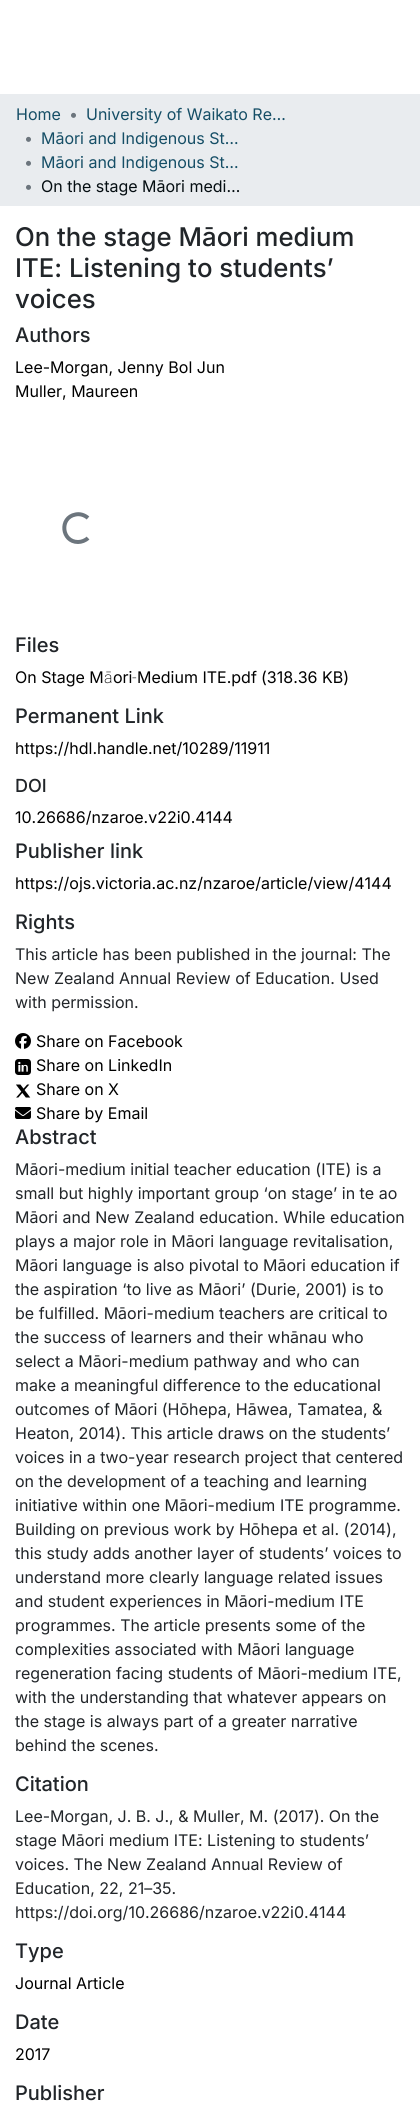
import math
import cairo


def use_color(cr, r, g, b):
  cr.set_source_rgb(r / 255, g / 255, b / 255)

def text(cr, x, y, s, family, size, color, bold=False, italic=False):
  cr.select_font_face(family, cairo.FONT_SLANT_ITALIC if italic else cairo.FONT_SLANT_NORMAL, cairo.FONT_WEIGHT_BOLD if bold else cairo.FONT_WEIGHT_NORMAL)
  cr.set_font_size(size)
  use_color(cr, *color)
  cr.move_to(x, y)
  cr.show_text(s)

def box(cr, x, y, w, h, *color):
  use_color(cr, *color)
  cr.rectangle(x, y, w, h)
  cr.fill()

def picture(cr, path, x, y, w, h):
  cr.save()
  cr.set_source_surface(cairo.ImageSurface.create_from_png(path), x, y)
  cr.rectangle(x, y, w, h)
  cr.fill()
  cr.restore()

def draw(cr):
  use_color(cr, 255, 255, 255)
  cr.paint()
  box(cr, 0, 94, 420, 112, 233, 236, 239)
  cr.new_path()
  cr.move_to(88, 538)
  cr.curve_to(85.5, 540.5, 81.5, 542, 78, 542)
  cr.curve_to(61.5, 542, 59, 517.5, 75.5, 514.5)
  cr.curve_to(80, 513.5, 84.5, 515, 88, 518)
  use_color(cr, 108, 117, 125)
  cr.set_line_width(4)
  cr.stroke()
  picture(cr, "img_01.png", 15, 1033, 16, 16)
  picture(cr, "img_02.png", 15, 1059, 16, 16)
  picture(cr, "img_03.png", 16, 1084, 15, 14)
  picture(cr, "img_04.png", 15, 1107, 16, 12)
  text(cr, 16, 120, "Home", "Inter", 16, (21, 78, 102))
  text(cr, 69, 120, "•", "Inter", 16, (108, 117, 125))
  text(cr, 86, 120, "University of Waikato Re…", "Inter", 16, (21, 78, 102))
  text(cr, 24, 144, "•", "Inter", 16, (108, 117, 125))
  text(cr, 41, 144, "Māori and Indigenous St…", "Inter", 16, (21, 78, 102))
  text(cr, 24, 168, "•", "Inter", 16, (108, 117, 125))
  text(cr, 41, 168, "Māori and Indigenous St…", "Inter", 16, (21, 78, 102))
  text(cr, 24, 192, "•", "Inter", 16, (108, 117, 125))
  text(cr, 41, 192, "On the stage Māori medi…", "Inter", 16, (4, 13, 17))
  text(cr, 15, 246, "On the stage Māori medium", "Inter Medium", 25.75, (33, 37, 41))
  text(cr, 15, 277, "ITE: Listening to students’", "Inter Medium", 25.75, (33, 37, 41))
  text(cr, 15, 308, "voices", "Inter Medium", 25.75, (33, 37, 41))
  text(cr, 15, 342, "Authors", "Inter Medium", 20, (33, 37, 41))
  text(cr, 15, 373, "Lee-Morgan, Jenny Bol Jun", "Inter", 16, (0, 0, 0))
  text(cr, 15, 397, "Muller, Maureen", "Inter", 16, (0, 0, 0))
  text(cr, 15, 652, "Files", "Inter Medium", 20, (33, 37, 41))
  text(cr, 15, 683, "On Stage M", "Inter", 16, (0, 0, 0))
  text(cr, 104, 683, "ā", "Roboto ExtraLight", 16, (0, 0, 0))
  text(cr, 113, 683, "ori", "Inter", 16, (0, 0, 0))
  text(cr, 132, 683, "‐", "Roboto ExtraLight", 16, (0, 0, 0))
  text(cr, 137, 683, "Medium ITE.pdf", "Inter", 16, (0, 0, 0))
  text(cr, 261, 683, "(318.36 KB)", "Inter", 16, (0, 0, 0))
  text(cr, 15, 723, "Permanent Link", "Inter Medium", 20, (33, 37, 41))
  text(cr, 15, 754, "https://hdl.handle.net/10289/11911", "Inter", 16, (0, 0, 0))
  text(cr, 15, 792, "DOI", "Inter Medium", 18, (33, 37, 41))
  text(cr, 15, 823, "10.26686/nzaroe.v22i0.4144", "Inter", 16, (0, 0, 0))
  text(cr, 15, 858, "Publisher link", "Inter Medium", 20, (33, 37, 41))
  text(cr, 15, 889, "https://ojs.victoria.ac.nz/nzaroe/article/view/4144", "Inter", 16, (0, 0, 0))
  text(cr, 15, 929, "Rights", "Inter Medium", 20, (33, 37, 41))
  text(cr, 15, 960, "This article has been published in the journal: The", "Inter", 16, (33, 37, 41))
  text(cr, 15, 984, "New Zealand Annual Review of Education. Used", "Inter", 16, (33, 37, 41))
  text(cr, 15, 1008, "with permission.", "Inter", 16, (33, 37, 41))
  text(cr, 36, 1047, "Share on Facebook", "Inter", 16, (0, 0, 0))
  text(cr, 36, 1071, "Share on LinkedIn", "Inter", 16, (0, 0, 0))
  text(cr, 36, 1095, "Share on X", "Inter", 16, (0, 0, 0))
  text(cr, 36, 1119, "Share by Email", "Inter", 16, (0, 0, 0))
  text(cr, 15, 1144, "Abstract", "Inter Medium", 20, (33, 37, 41))
  text(cr, 15, 1175, "Māori-medium initial teacher education (ITE) is a", "Inter", 16, (33, 37, 41))
  text(cr, 15, 1199, "small but highly important group ‘on stage’ in te ao", "Inter", 16, (33, 37, 41))
  text(cr, 15, 1223, "Māori and New Zealand education. While education", "Inter", 16, (33, 37, 41))
  text(cr, 15, 1247, "plays a major role in Māori language revitalisation,", "Inter", 16, (33, 37, 41))
  text(cr, 15, 1271, "Māori language is also pivotal to Māori education if", "Inter", 16, (33, 37, 41))
  text(cr, 15, 1295, "the aspiration ‘to live as Māori’ (Durie, 2001) is to", "Inter", 16, (33, 37, 41))
  text(cr, 15, 1319, "be fulfilled. Māori-medium teachers are critical to", "Inter", 16, (33, 37, 41))
  text(cr, 15, 1343, "the success of learners and their whānau who", "Inter", 16, (33, 37, 41))
  text(cr, 15, 1367, "select a Māori-medium pathway and who can", "Inter", 16, (33, 37, 41))
  text(cr, 15, 1391, "make a meaningful difference to the educational", "Inter", 16, (33, 37, 41))
  text(cr, 15, 1415, "outcomes of Māori (Hōhepa, Hāwea, Tamatea, &", "Inter", 16, (33, 37, 41))
  text(cr, 15, 1439, "Heaton, 2014). This article draws on the students’", "Inter", 16, (33, 37, 41))
  text(cr, 15, 1463, "voices in a two-year research project that centered", "Inter", 16, (33, 37, 41))
  text(cr, 15, 1487, "on the development of a teaching and learning", "Inter", 16, (33, 37, 41))
  text(cr, 15, 1511, "initiative within one Māori-medium ITE programme.", "Inter", 16, (33, 37, 41))
  text(cr, 15, 1535, "Building on previous work by Hōhepa et al. (2014),", "Inter", 16, (33, 37, 41))
  text(cr, 15, 1559, "this study adds another layer of students’ voices to", "Inter", 16, (33, 37, 41))
  text(cr, 15, 1583, "understand more clearly language related issues", "Inter", 16, (33, 37, 41))
  text(cr, 15, 1607, "and student experiences in Māori-medium ITE", "Inter", 16, (33, 37, 41))
  text(cr, 15, 1631, "programmes. The article presents some of the", "Inter", 16, (33, 37, 41))
  text(cr, 15, 1655, "complexities associated with Māori language", "Inter", 16, (33, 37, 41))
  text(cr, 15, 1679, "regeneration facing students of Māori-medium ITE,", "Inter", 16, (33, 37, 41))
  text(cr, 15, 1703, "with the understanding that whatever appears on", "Inter", 16, (33, 37, 41))
  text(cr, 15, 1727, "the stage is always part of a greater narrative", "Inter", 16, (33, 37, 41))
  text(cr, 15, 1751, "behind the scenes.", "Inter", 16, (33, 37, 41))
  text(cr, 15, 1791, "Citation", "Inter Medium", 20, (33, 37, 41))
  text(cr, 15, 1822, "Lee-Morgan, J. B. J., & Muller, M. (2017). On the", "Inter", 16, (33, 37, 41))
  text(cr, 15, 1846, "stage Māori medium ITE: Listening to students’", "Inter", 16, (33, 37, 41))
  text(cr, 15, 1870, "voices. The New Zealand Annual Review of", "Inter", 16, (33, 37, 41))
  text(cr, 15, 1894, "Education, 22, 21–35.", "Inter", 16, (33, 37, 41))
  text(cr, 15, 1918, "https://doi.org/10.26686/nzaroe.v22i0.4144", "Inter", 16, (33, 37, 41))
  text(cr, 15, 1958, "Type", "Inter Medium", 20, (33, 37, 41))
  text(cr, 15, 1989, "Journal Article", "Inter", 16, (0, 0, 0))
  text(cr, 15, 2029, "Date", "Inter Medium", 20, (33, 37, 41))
  text(cr, 15, 2060, "2017", "Inter", 16, (0, 0, 0))
  text(cr, 15, 2100, "Publisher", "Inter Medium", 20, (33, 37, 41))


surface = cairo.ImageSurface(cairo.FORMAT_RGB24, 420, 2124)
cr = cairo.Context(surface)
options = cairo.FontOptions()
options.set_hint_metrics(cairo.HINT_METRICS_OFF)
options.set_hint_style(cairo.HINT_STYLE_NONE)
cr.set_font_options(options)
cr.set_miter_limit(4)
draw(cr)
surface.write_to_png("out.png")
